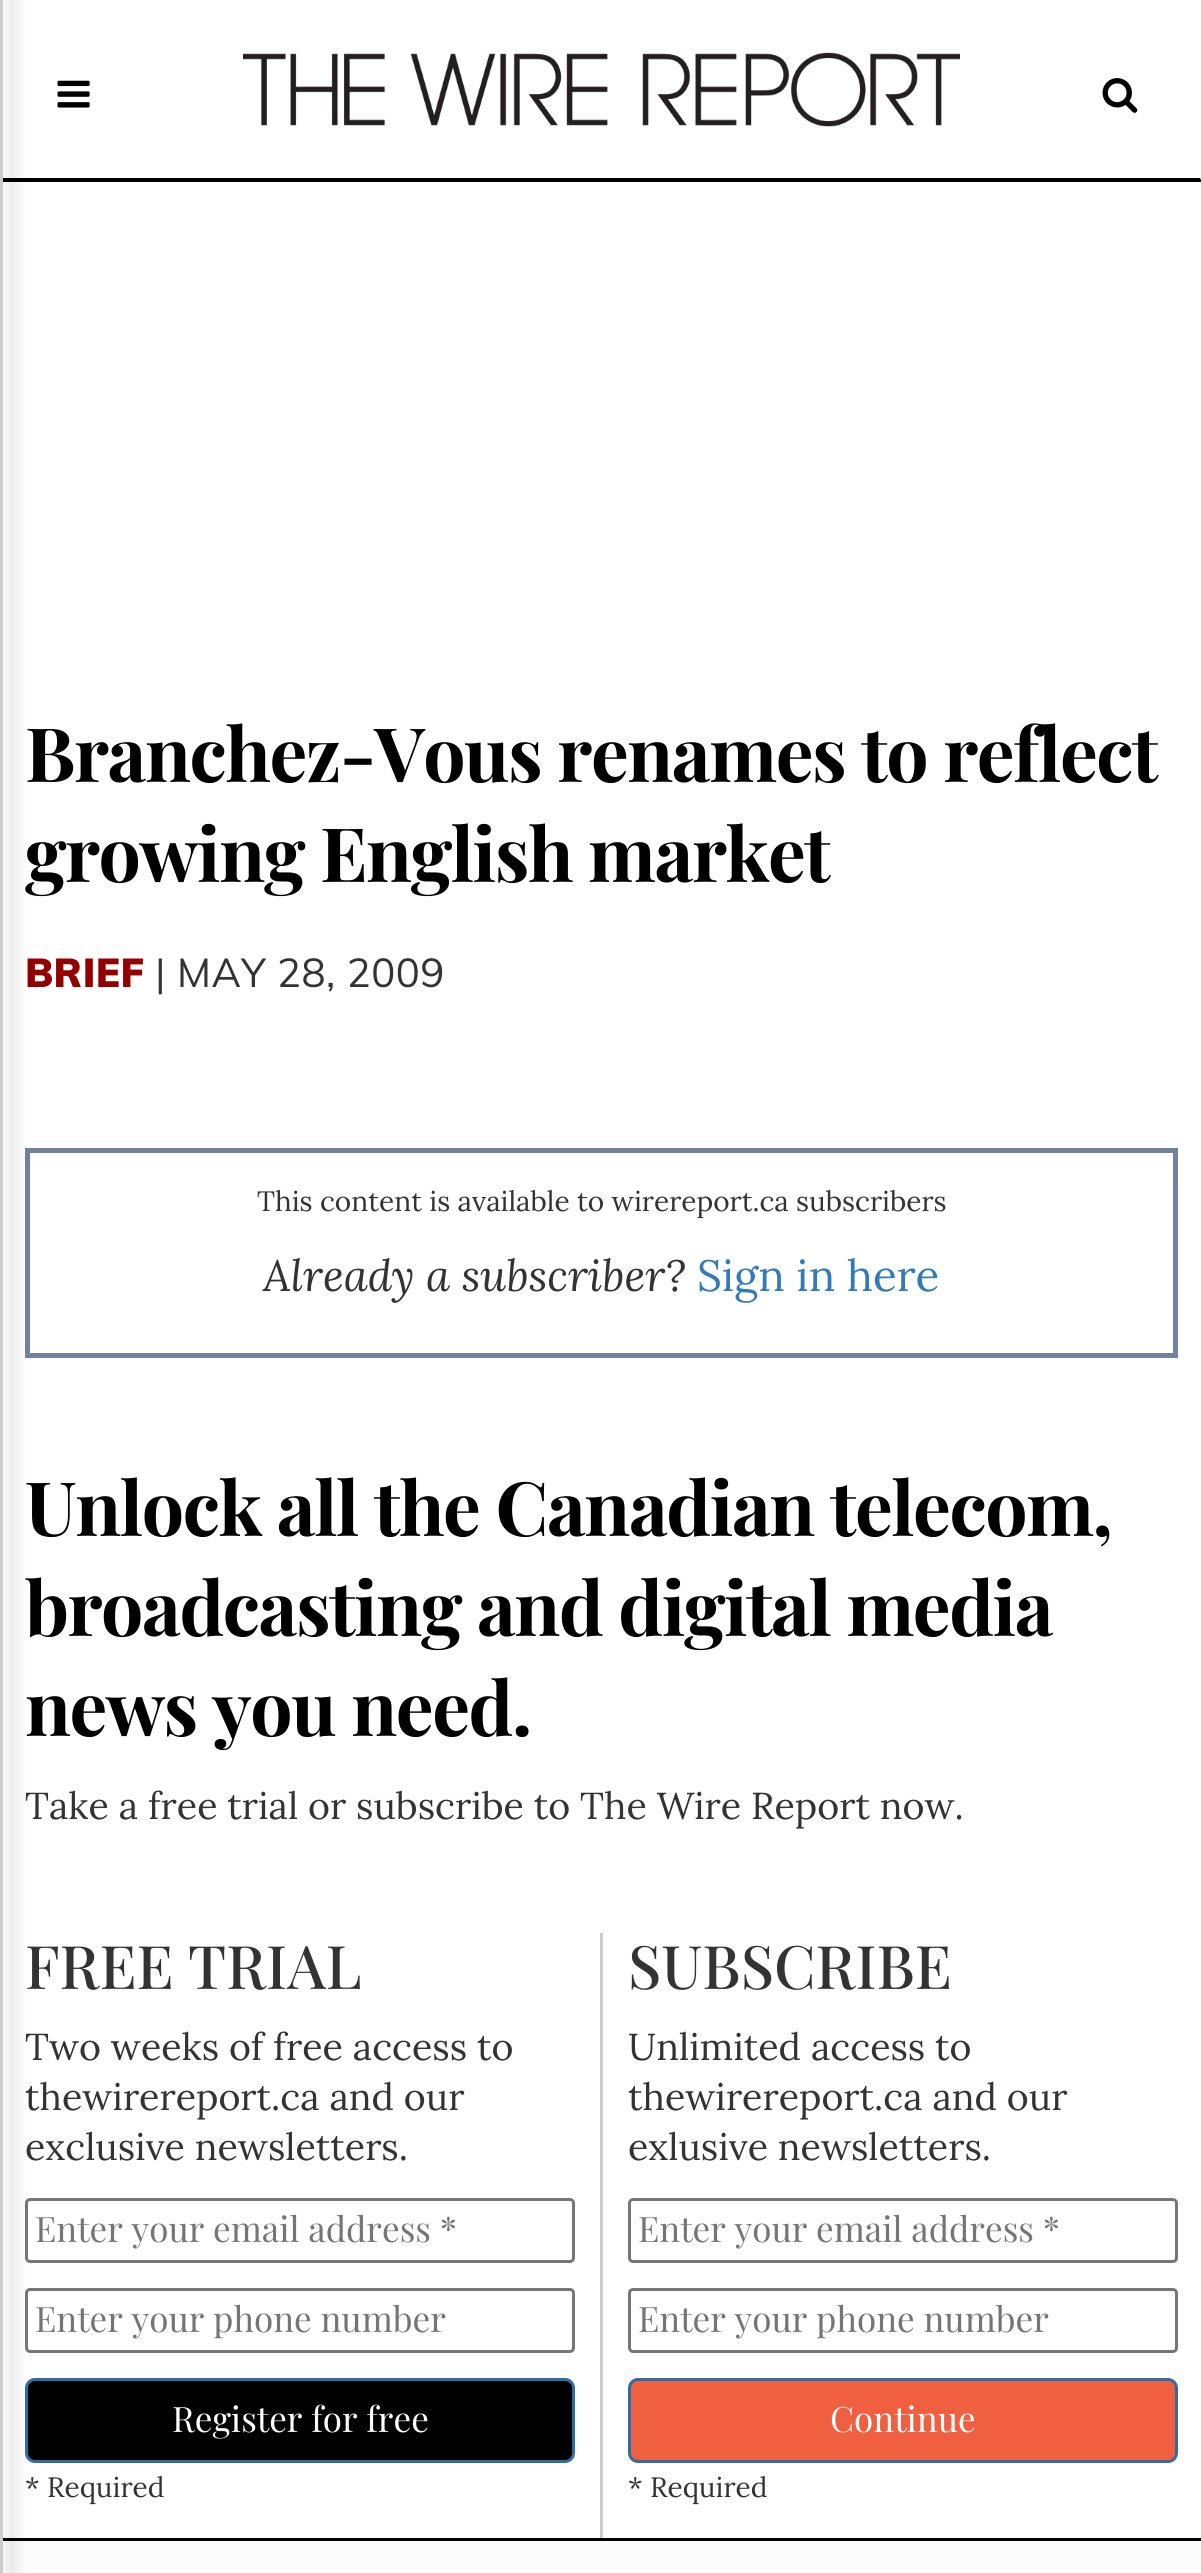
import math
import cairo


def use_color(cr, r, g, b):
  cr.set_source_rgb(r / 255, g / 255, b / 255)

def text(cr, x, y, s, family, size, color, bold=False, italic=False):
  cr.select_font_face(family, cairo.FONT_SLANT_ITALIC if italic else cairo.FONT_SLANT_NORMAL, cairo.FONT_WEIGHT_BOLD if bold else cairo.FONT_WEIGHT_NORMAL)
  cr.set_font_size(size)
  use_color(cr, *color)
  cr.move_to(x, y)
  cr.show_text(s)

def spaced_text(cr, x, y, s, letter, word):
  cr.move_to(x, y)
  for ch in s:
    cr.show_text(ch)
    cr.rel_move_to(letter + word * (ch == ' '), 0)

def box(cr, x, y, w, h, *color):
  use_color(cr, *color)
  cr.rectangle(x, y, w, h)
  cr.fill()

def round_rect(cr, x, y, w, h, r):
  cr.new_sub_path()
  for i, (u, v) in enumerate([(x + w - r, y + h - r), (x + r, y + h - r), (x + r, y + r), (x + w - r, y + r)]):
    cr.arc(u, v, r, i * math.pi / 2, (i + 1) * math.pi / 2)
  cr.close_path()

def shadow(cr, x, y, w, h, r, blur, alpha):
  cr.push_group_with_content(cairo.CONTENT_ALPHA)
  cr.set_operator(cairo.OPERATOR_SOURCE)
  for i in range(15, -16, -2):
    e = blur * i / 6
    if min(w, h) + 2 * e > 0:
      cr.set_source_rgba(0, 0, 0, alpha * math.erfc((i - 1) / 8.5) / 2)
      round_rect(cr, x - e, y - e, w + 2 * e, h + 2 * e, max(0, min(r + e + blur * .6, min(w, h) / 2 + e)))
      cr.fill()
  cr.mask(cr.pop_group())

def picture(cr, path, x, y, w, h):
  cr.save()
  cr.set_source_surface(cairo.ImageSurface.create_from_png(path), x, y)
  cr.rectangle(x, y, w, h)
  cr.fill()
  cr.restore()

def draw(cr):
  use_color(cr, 255, 255, 255)
  cr.paint()
  use_color(cr, 0, 0, 0)
  cr.new_path()
  cr.move_to(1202, 182)
  cr.line_to(0, 182)
  cr.line_to(2, 178)
  cr.line_to(1200, 178)
  cr.close_path()
  cr.fill()
  cr.rectangle(27.5, 1150.5, 1148, 205)
  use_color(cr, 114, 130, 155)
  cr.set_line_width(5)
  cr.stroke()
  round_rect(cr, 26.5, 2199.5, 547, 62, 3.5)
  use_color(cr, 118, 118, 118)
  cr.set_line_width(3)
  cr.stroke()
  round_rect(cr, 26.5, 2289.5, 547, 62, 3.5)
  cr.stroke()
  use_color(cr, 0, 0, 0)
  round_rect(cr, 26.5, 2379.5, 547, 82, 8.5)
  cr.fill_preserve()
  use_color(cr, 46, 109, 164)
  cr.stroke()
  box(cr, 3, 2541, 1198, 32, 252, 252, 252)
  box(cr, 0, 2538, 1201, 3, 0, 0, 0)
  use_color(cr, 0, 0, 0)
  shadow(cr, 8, -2, 8, 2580, 0, 7.5, 0.1)
  box(cr, 0, 0, 3, 2573, 204, 204, 204)
  picture(cr, "img_01.png", 57, 80, 33, 28)
  picture(cr, "img_02.png", 243, 52, 717, 75)
  picture(cr, "img_03.png", 1102, 78, 36, 35)
  box(cr, 600, 1933, 3, 605, 204, 204, 204)
  round_rect(cr, 629.5, 2199.5, 547, 62, 3.5)
  use_color(cr, 118, 118, 118)
  cr.stroke()
  round_rect(cr, 629.5, 2289.5, 547, 62, 3.5)
  cr.stroke()
  use_color(cr, 240, 95, 64)
  round_rect(cr, 629.5, 2379.5, 547, 82, 8.5)
  cr.fill_preserve()
  use_color(cr, 46, 109, 164)
  cr.stroke()
  cr.select_font_face("Playfair Display", cairo.FONT_SLANT_NORMAL, cairo.FONT_WEIGHT_BOLD)
  cr.set_font_size(75)
  use_color(cr, 0, 0, 0)
  spaced_text(cr, 25, 782, "Branchez-Vous renames to reflect", -1.45, 0)
  spaced_text(cr, 25, 882, "growing English market", -1.45, 0)
  cr.select_font_face("Muli Black")
  cr.set_font_size(40)
  use_color(cr, 146, 0, 0)
  spaced_text(cr, 25, 987, "BRIEF", 0.5, 0)
  cr.select_font_face("Muli")
  use_color(cr, 51, 51, 51)
  spaced_text(cr, 155, 987, "| MAY 28, 2009", 0.5, 0)
  text(cr, 257, 1211, "This content is available to wirereport.ca subscribers", "Lora", 28, (51, 51, 51))
  text(cr, 263, 1291, "Already a subscriber?", "Lora", 43.75, (51, 51, 51), italic=True)
  text(cr, 697, 1291, "Sign in here", "Lora", 43.75, (51, 122, 183))
  cr.select_font_face("Playfair Display", cairo.FONT_SLANT_NORMAL, cairo.FONT_WEIGHT_BOLD)
  cr.set_font_size(75)
  use_color(cr, 0, 0, 0)
  spaced_text(cr, 25, 1536, "Unlock all the Canadian telecom,", -1.45, 0)
  spaced_text(cr, 25, 1636, "broadcasting and digital media", -1.45, 0)
  spaced_text(cr, 25, 1736, "news you need.", -1.45, 0)
  text(cr, 25, 1819, "Take a free trial or subscribe to The Wire Report now.", "Lora", 37.5, (51, 51, 51))
  text(cr, 25, 1989, "FREE TRIAL", "Playfair Display Medium", 60, (51, 51, 51))
  text(cr, 25, 2060, "Two weeks of free access to", "Lora", 37.5, (51, 51, 51))
  text(cr, 25, 2110, "thewirereport.ca and our", "Lora", 37.5, (51, 51, 51))
  text(cr, 25, 2160, "exclusive newsletters.", "Lora", 37.5, (51, 51, 51))
  text(cr, 35, 2242, "Enter your email address *", "Playfair Display", 35, (117, 117, 117))
  text(cr, 35, 2332, "Enter your phone number", "Playfair Display", 35, (117, 117, 117))
  text(cr, 172, 2432, "Register for free", "Playfair Display", 35, (255, 255, 255))
  text(cr, 25, 2497, "* Required", "Lora", 28, (51, 51, 51))
  text(cr, 628, 1989, "SUBSCRIBE", "Playfair Display Medium", 60, (51, 51, 51))
  text(cr, 628, 2060, "Unlimited access to", "Lora", 37.5, (51, 51, 51))
  text(cr, 628, 2110, "thewirereport.ca and our", "Lora", 37.5, (51, 51, 51))
  text(cr, 628, 2160, "exlusive newsletters.", "Lora", 37.5, (51, 51, 51))
  text(cr, 638, 2242, "Enter your email address *", "Playfair Display", 35, (117, 117, 117))
  text(cr, 638, 2332, "Enter your phone number", "Playfair Display", 35, (117, 117, 117))
  text(cr, 830, 2432, "Continue", "Playfair Display", 35, (255, 255, 255))
  text(cr, 628, 2497, "* Required", "Lora", 28, (51, 51, 51))


surface = cairo.ImageSurface(cairo.FORMAT_RGB24, 1201, 2573)
cr = cairo.Context(surface)
options = cairo.FontOptions()
options.set_hint_metrics(cairo.HINT_METRICS_OFF)
options.set_hint_style(cairo.HINT_STYLE_NONE)
cr.set_font_options(options)
cr.set_miter_limit(4)
draw(cr)
surface.write_to_png("out.png")
